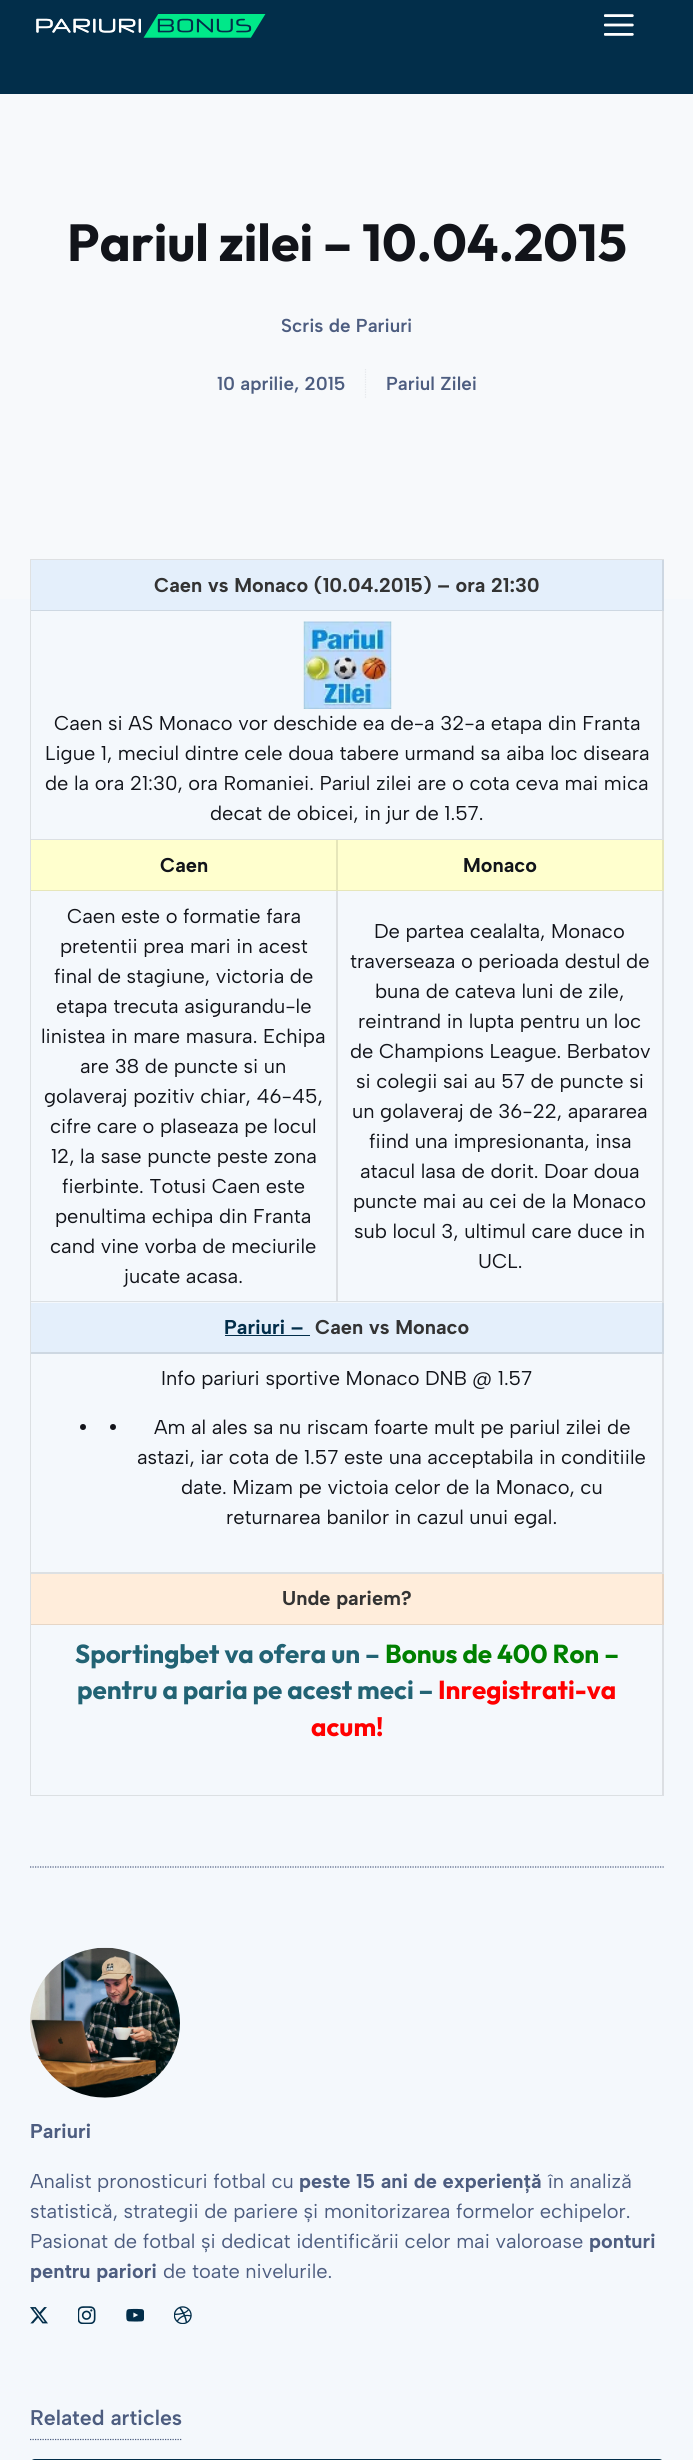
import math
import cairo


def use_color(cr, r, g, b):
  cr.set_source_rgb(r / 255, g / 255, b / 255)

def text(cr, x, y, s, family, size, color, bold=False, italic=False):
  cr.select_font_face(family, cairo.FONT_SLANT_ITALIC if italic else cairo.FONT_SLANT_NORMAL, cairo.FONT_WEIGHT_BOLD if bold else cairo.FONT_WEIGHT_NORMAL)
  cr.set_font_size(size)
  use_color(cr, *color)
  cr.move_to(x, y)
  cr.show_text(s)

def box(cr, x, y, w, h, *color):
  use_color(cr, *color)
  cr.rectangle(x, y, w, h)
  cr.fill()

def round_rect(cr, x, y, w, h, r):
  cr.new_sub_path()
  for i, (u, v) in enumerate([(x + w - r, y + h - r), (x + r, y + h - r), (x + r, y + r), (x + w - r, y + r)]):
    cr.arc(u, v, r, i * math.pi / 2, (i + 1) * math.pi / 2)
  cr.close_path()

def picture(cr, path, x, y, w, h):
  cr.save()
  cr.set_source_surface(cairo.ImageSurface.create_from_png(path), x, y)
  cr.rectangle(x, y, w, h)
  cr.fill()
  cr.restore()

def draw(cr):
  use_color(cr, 244, 248, 252)
  cr.paint()
  box(cr, 0, 0, 693, 94, 2, 46, 74)
  picture(cr, "img_01.png", 36, 14, 230, 24)
  picture(cr, "img_02.png", 604, 14, 30, 22)
  box(cr, 0, 94, 693, 505, 247, 249, 251)
  cr.new_path()
  cr.move_to(365.5, 369)
  cr.line_to(365.5, 399)
  use_color(cr, 229, 231, 235)
  cr.set_line_width(1.2)
  cr.set_dash([1.25, 1.25])
  cr.stroke()
  use_color(cr, 222, 224, 226)
  cr.new_path()
  cr.move_to(30, 559)
  cr.line_to(664, 559)
  cr.line_to(664, 560)
  cr.line_to(31, 560)
  cr.close_path()
  cr.fill()
  cr.set_source_rgba(0, 0, 0, 0.1)
  cr.new_path()
  cr.move_to(30, 1796)
  cr.line_to(30, 559)
  cr.line_to(31, 560)
  cr.line_to(31, 1796)
  cr.close_path()
  cr.fill()
  box(cr, 31, 560, 633, 51, 228, 239, 251)
  use_color(cr, 205, 215, 226)
  cr.new_path()
  cr.move_to(664, 560)
  cr.line_to(664, 611)
  cr.line_to(662, 610)
  cr.line_to(662, 560)
  cr.close_path()
  cr.fill()
  cr.set_source_rgba(0, 0, 0, 0.1)
  cr.new_path()
  cr.move_to(664, 611)
  cr.line_to(31, 611)
  cr.line_to(31, 610)
  cr.line_to(662, 610)
  cr.close_path()
  cr.fill()
  use_color(cr, 220, 223, 227)
  cr.new_path()
  cr.move_to(664, 611)
  cr.line_to(664, 840)
  cr.line_to(662, 839)
  cr.line_to(662, 611)
  cr.close_path()
  cr.fill()
  cr.set_source_rgba(0, 0, 0, 0.1)
  cr.new_path()
  cr.move_to(664, 840)
  cr.line_to(31, 840)
  cr.line_to(31, 839)
  cr.line_to(662, 839)
  cr.close_path()
  cr.fill()
  picture(cr, "img_03.png", 303, 621, 89, 88)
  box(cr, 31, 840, 633, 51, 255, 255, 206)
  use_color(cr, 230, 230, 185)
  cr.new_path()
  cr.move_to(338, 840)
  cr.line_to(338, 891)
  cr.line_to(336, 890)
  cr.line_to(336, 840)
  cr.close_path()
  cr.fill()
  cr.set_source_rgba(0, 0, 0, 0.1)
  cr.new_path()
  cr.move_to(338, 891)
  cr.line_to(31, 891)
  cr.line_to(31, 890)
  cr.line_to(336, 890)
  cr.close_path()
  cr.fill()
  use_color(cr, 230, 230, 185)
  cr.new_path()
  cr.move_to(664, 840)
  cr.line_to(664, 891)
  cr.line_to(662, 890)
  cr.line_to(662, 840)
  cr.close_path()
  cr.fill()
  cr.set_source_rgba(0, 0, 0, 0.1)
  cr.new_path()
  cr.move_to(664, 891)
  cr.line_to(338, 891)
  cr.line_to(338, 890)
  cr.line_to(662, 890)
  cr.close_path()
  cr.fill()
  use_color(cr, 220, 223, 227)
  cr.new_path()
  cr.move_to(338, 891)
  cr.line_to(338, 1302)
  cr.line_to(336, 1301)
  cr.line_to(336, 891)
  cr.close_path()
  cr.fill()
  cr.set_source_rgba(0, 0, 0, 0.1)
  cr.new_path()
  cr.move_to(338, 1302)
  cr.line_to(31, 1302)
  cr.line_to(31, 1301)
  cr.line_to(336, 1301)
  cr.close_path()
  cr.fill()
  use_color(cr, 220, 223, 227)
  cr.new_path()
  cr.move_to(664, 891)
  cr.line_to(664, 1302)
  cr.line_to(662, 1301)
  cr.line_to(662, 891)
  cr.close_path()
  cr.fill()
  cr.set_source_rgba(0, 0, 0, 0.1)
  cr.new_path()
  cr.move_to(664, 1302)
  cr.line_to(338, 1302)
  cr.line_to(338, 1301)
  cr.line_to(662, 1301)
  cr.close_path()
  cr.fill()
  box(cr, 31, 1303, 633, 51, 228, 239, 251)
  cr.set_source_rgba(0, 0, 0, 0.1)
  cr.new_path()
  cr.move_to(664, 1302)
  cr.line_to(664, 1354)
  cr.line_to(662, 1352)
  cr.line_to(662, 1302)
  cr.close_path()
  cr.fill()
  cr.new_path()
  cr.move_to(664, 1354)
  cr.line_to(31, 1354)
  cr.line_to(31, 1352)
  cr.line_to(662, 1352)
  cr.close_path()
  cr.fill()
  box(cr, 225, 1335, 85, 1, 2, 46, 74)
  use_color(cr, 220, 223, 227)
  cr.new_path()
  cr.move_to(664, 1354)
  cr.line_to(664, 1574)
  cr.line_to(662, 1572)
  cr.line_to(662, 1354)
  cr.close_path()
  cr.fill()
  cr.set_source_rgba(0, 0, 0, 0.1)
  cr.new_path()
  cr.move_to(664, 1574)
  cr.line_to(31, 1574)
  cr.line_to(31, 1572)
  cr.line_to(662, 1572)
  cr.close_path()
  cr.fill()
  use_color(cr, 18, 20, 26)
  cr.arc(83, 1427, 3, 0, 2 * math.pi)
  cr.fill()
  cr.arc(113, 1427, 3, 0, 2 * math.pi)
  cr.fill()
  box(cr, 31, 1574, 633, 51, 255, 237, 219)
  use_color(cr, 230, 213, 197)
  cr.new_path()
  cr.move_to(664, 1574)
  cr.line_to(664, 1625)
  cr.line_to(662, 1624)
  cr.line_to(662, 1574)
  cr.close_path()
  cr.fill()
  cr.set_source_rgba(0, 0, 0, 0.1)
  cr.new_path()
  cr.move_to(664, 1625)
  cr.line_to(31, 1625)
  cr.line_to(31, 1624)
  cr.line_to(662, 1624)
  cr.close_path()
  cr.fill()
  use_color(cr, 220, 223, 227)
  cr.new_path()
  cr.move_to(664, 1625)
  cr.line_to(664, 1796)
  cr.line_to(662, 1795)
  cr.line_to(662, 1625)
  cr.close_path()
  cr.fill()
  cr.set_source_rgba(0, 0, 0, 0.1)
  cr.new_path()
  cr.move_to(664, 1796)
  cr.line_to(31, 1796)
  cr.line_to(31, 1795)
  cr.line_to(662, 1795)
  cr.close_path()
  cr.fill()
  cr.new_path()
  cr.move_to(30, 1867)
  cr.line_to(664, 1867)
  use_color(cr, 77, 93, 128)
  cr.stroke()
  picture(cr, "img_04.png", 30, 1947, 150, 151)
  picture(cr, "img_05.png", 30, 2307, 18, 17)
  picture(cr, "img_06.png", 78, 2306, 18, 18)
  picture(cr, "img_07.png", 126, 2308, 18, 14)
  picture(cr, "img_08.png", 174, 2306, 18, 18)
  cr.new_path()
  cr.move_to(30, 2439.5)
  cr.line_to(182.5, 2439.5)
  cr.stroke()
  use_color(cr, 2, 46, 74)
  round_rect(cr, 30, 2459, 634, 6, 5)
  cr.fill()
  text(cr, 67, 261, "Pariul zilei – 10.04.2015", "Outfit", 52, (18, 20, 26), bold=True)
  text(cr, 281, 332, "Scris de Pariuri", "Albert Sans SemiBold", 18.75, (77, 93, 128))
  text(cr, 217, 390, "10 aprilie, 2015", "Albert Sans SemiBold", 18.75, (77, 93, 128))
  text(cr, 386, 390, "Pariul Zilei", "Albert Sans SemiBold", 18.75, (77, 93, 128))
  text(cr, 154, 592, "Caen vs Monaco (10.04.2015) – ora 21:30", "Albert Sans", 20, (51, 51, 51), bold=True)
  text(cr, 54, 730, "Caen si AS Monaco vor deschide ea de-a 32-a etapa din Franta", "Albert Sans", 20, (18, 20, 26))
  text(cr, 45, 760, "Ligue 1, meciul dintre cele doua tabere urmand sa aiba loc diseara", "Albert Sans", 20, (18, 20, 26))
  text(cr, 45, 790, "de la ora 21:30, ora Romaniei. Pariul zilei are o cota ceva mai mica", "Albert Sans", 20, (18, 20, 26))
  text(cr, 210, 820, "decat de obicei, in jur de 1.57.", "Albert Sans", 20, (18, 20, 26))
  text(cr, 160, 872, "Caen", "Albert Sans", 20, (18, 20, 26), bold=True)
  text(cr, 463, 872, "Monaco", "Albert Sans", 20, (18, 20, 26), bold=True)
  text(cr, 67, 923, "Caen este o formatie fara", "Albert Sans", 20, (18, 20, 26))
  text(cr, 60, 953, "pretentii prea mari in acest", "Albert Sans", 20, (18, 20, 26))
  text(cr, 54, 983, "final de stagiune, victoria de", "Albert Sans", 20, (18, 20, 26))
  text(cr, 56, 1013, "etapa trecuta asigurandu-le", "Albert Sans", 20, (18, 20, 26))
  text(cr, 41, 1043, "linistea in mare masura. Echipa", "Albert Sans", 20, (18, 20, 26))
  text(cr, 80, 1073, "are 38 de puncte si un", "Albert Sans", 20, (18, 20, 26))
  text(cr, 44, 1103, "golaveraj pozitiv chiar, 46-45,", "Albert Sans", 20, (18, 20, 26))
  text(cr, 50, 1133, "cifre care o plaseaza pe locul", "Albert Sans", 20, (18, 20, 26))
  text(cr, 51, 1163, "12, la sase puncte peste zona", "Albert Sans", 20, (18, 20, 26))
  text(cr, 62, 1193, "fierbinte. Totusi Caen este", "Albert Sans", 20, (18, 20, 26))
  text(cr, 55, 1223, "penultima echipa din Franta", "Albert Sans", 20, (18, 20, 26))
  text(cr, 50, 1253, "cand vine vorba de meciurile", "Albert Sans", 20, (18, 20, 26))
  text(cr, 124, 1283, "jucate acasa.", "Albert Sans", 20, (18, 20, 26))
  text(cr, 374, 938, "De partea cealalta, Monaco", "Albert Sans", 20, (18, 20, 26))
  text(cr, 350, 968, "traverseaza o perioada destul de", "Albert Sans", 20, (18, 20, 26))
  text(cr, 375, 998, "buna de cateva luni de zile,", "Albert Sans", 20, (18, 20, 26))
  text(cr, 358, 1028, "reintrand in lupta pentru un loc", "Albert Sans", 20, (18, 20, 26))
  text(cr, 350, 1058, "de Champions League. Berbatov", "Albert Sans", 20, (18, 20, 26))
  text(cr, 356, 1088, "si colegii sai au 57 de puncte si", "Albert Sans", 20, (18, 20, 26))
  text(cr, 352, 1118, "un golaveraj de 36-22, apararea", "Albert Sans", 20, (18, 20, 26))
  text(cr, 369, 1148, "fiind una impresionanta, insa", "Albert Sans", 20, (18, 20, 26))
  text(cr, 360, 1178, "atacul lasa de dorit. Doar doua", "Albert Sans", 20, (18, 20, 26))
  text(cr, 353, 1208, "puncte mai au cei de la Monaco", "Albert Sans", 20, (18, 20, 26))
  text(cr, 354, 1238, "sub locul 3, ultimul care duce in", "Albert Sans", 20, (18, 20, 26))
  text(cr, 478, 1268, "UCL.", "Albert Sans", 20, (18, 20, 26))
  text(cr, 224, 1334, "Pariuri –", "Albert Sans", 20, (2, 46, 74), bold=True)
  text(cr, 315, 1334, "Caen vs Monaco", "Albert Sans", 20, (51, 51, 51), bold=True)
  text(cr, 161, 1385, "Info pariuri sportive Monaco DNB @ 1.57", "Albert Sans", 20, (18, 20, 26))
  text(cr, 154, 1434, "Am al ales sa nu riscam foarte mult pe pariul zilei de", "Albert Sans", 20, (18, 20, 26))
  text(cr, 137, 1464, "astazi, iar cota de 1.57 este una acceptabila in conditiile", "Albert Sans", 20, (18, 20, 26))
  text(cr, 181, 1494, "date. Mizam pe victoia celor de la Monaco, cu", "Albert Sans", 20, (18, 20, 26))
  text(cr, 226, 1524, "returnarea banilor in cazul unui egal.", "Albert Sans", 20, (18, 20, 26))
  text(cr, 282, 1605, "Unde pariem?", "Albert Sans", 20, (51, 51, 51), bold=True)
  text(cr, 75, 1663, "Sportingbet va ofera un –", "Outfit", 26, (34, 99, 116), bold=True)
  text(cr, 385, 1663, "Bonus de 400 Ron –", "Outfit", 26, (0, 128, 0), bold=True)
  text(cr, 77, 1699, "pentru a paria pe acest meci –", "Outfit", 26, (34, 99, 116), bold=True)
  text(cr, 438, 1699, "Inregistrati-va", "Outfit", 26, (255, 0, 0), bold=True)
  text(cr, 311, 1736, "acum!", "Outfit", 26, (255, 0, 0), bold=True)
  text(cr, 30, 2138, "Pariuri", "Albert Sans", 20, (77, 93, 128), bold=True)
  text(cr, 30, 2188, "Analist pronosticuri fotbal cu", "Albert Sans", 20, (77, 93, 128))
  text(cr, 299, 2188, "peste 15 ani de experiență", "Albert Sans", 20, (77, 93, 128), bold=True)
  text(cr, 548, 2188, "în analiză", "Albert Sans", 20, (77, 93, 128))
  text(cr, 30, 2218, "statistică, strategii de pariere și monitorizarea formelor echipelor.", "Albert Sans", 20, (77, 93, 128))
  text(cr, 30, 2248, "Pasionat de fotbal și dedicat identificării celor mai valoroase", "Albert Sans", 20, (77, 93, 128))
  text(cr, 589, 2248, "ponturi", "Albert Sans", 20, (77, 93, 128), bold=True)
  text(cr, 30, 2278, "pentru pariori", "Albert Sans", 20, (77, 93, 128), bold=True)
  text(cr, 163, 2278, "de toate nivelurile.", "Albert Sans", 20, (77, 93, 128))
  text(cr, 30, 2425, "Related articles", "Albert Sans SemiBold", 21.25, (77, 93, 128))


surface = cairo.ImageSurface(cairo.FORMAT_RGB24, 693, 2460)
cr = cairo.Context(surface)
options = cairo.FontOptions()
options.set_hint_metrics(cairo.HINT_METRICS_OFF)
options.set_hint_style(cairo.HINT_STYLE_NONE)
cr.set_font_options(options)
cr.set_miter_limit(4)
draw(cr)
surface.write_to_png("out.png")
